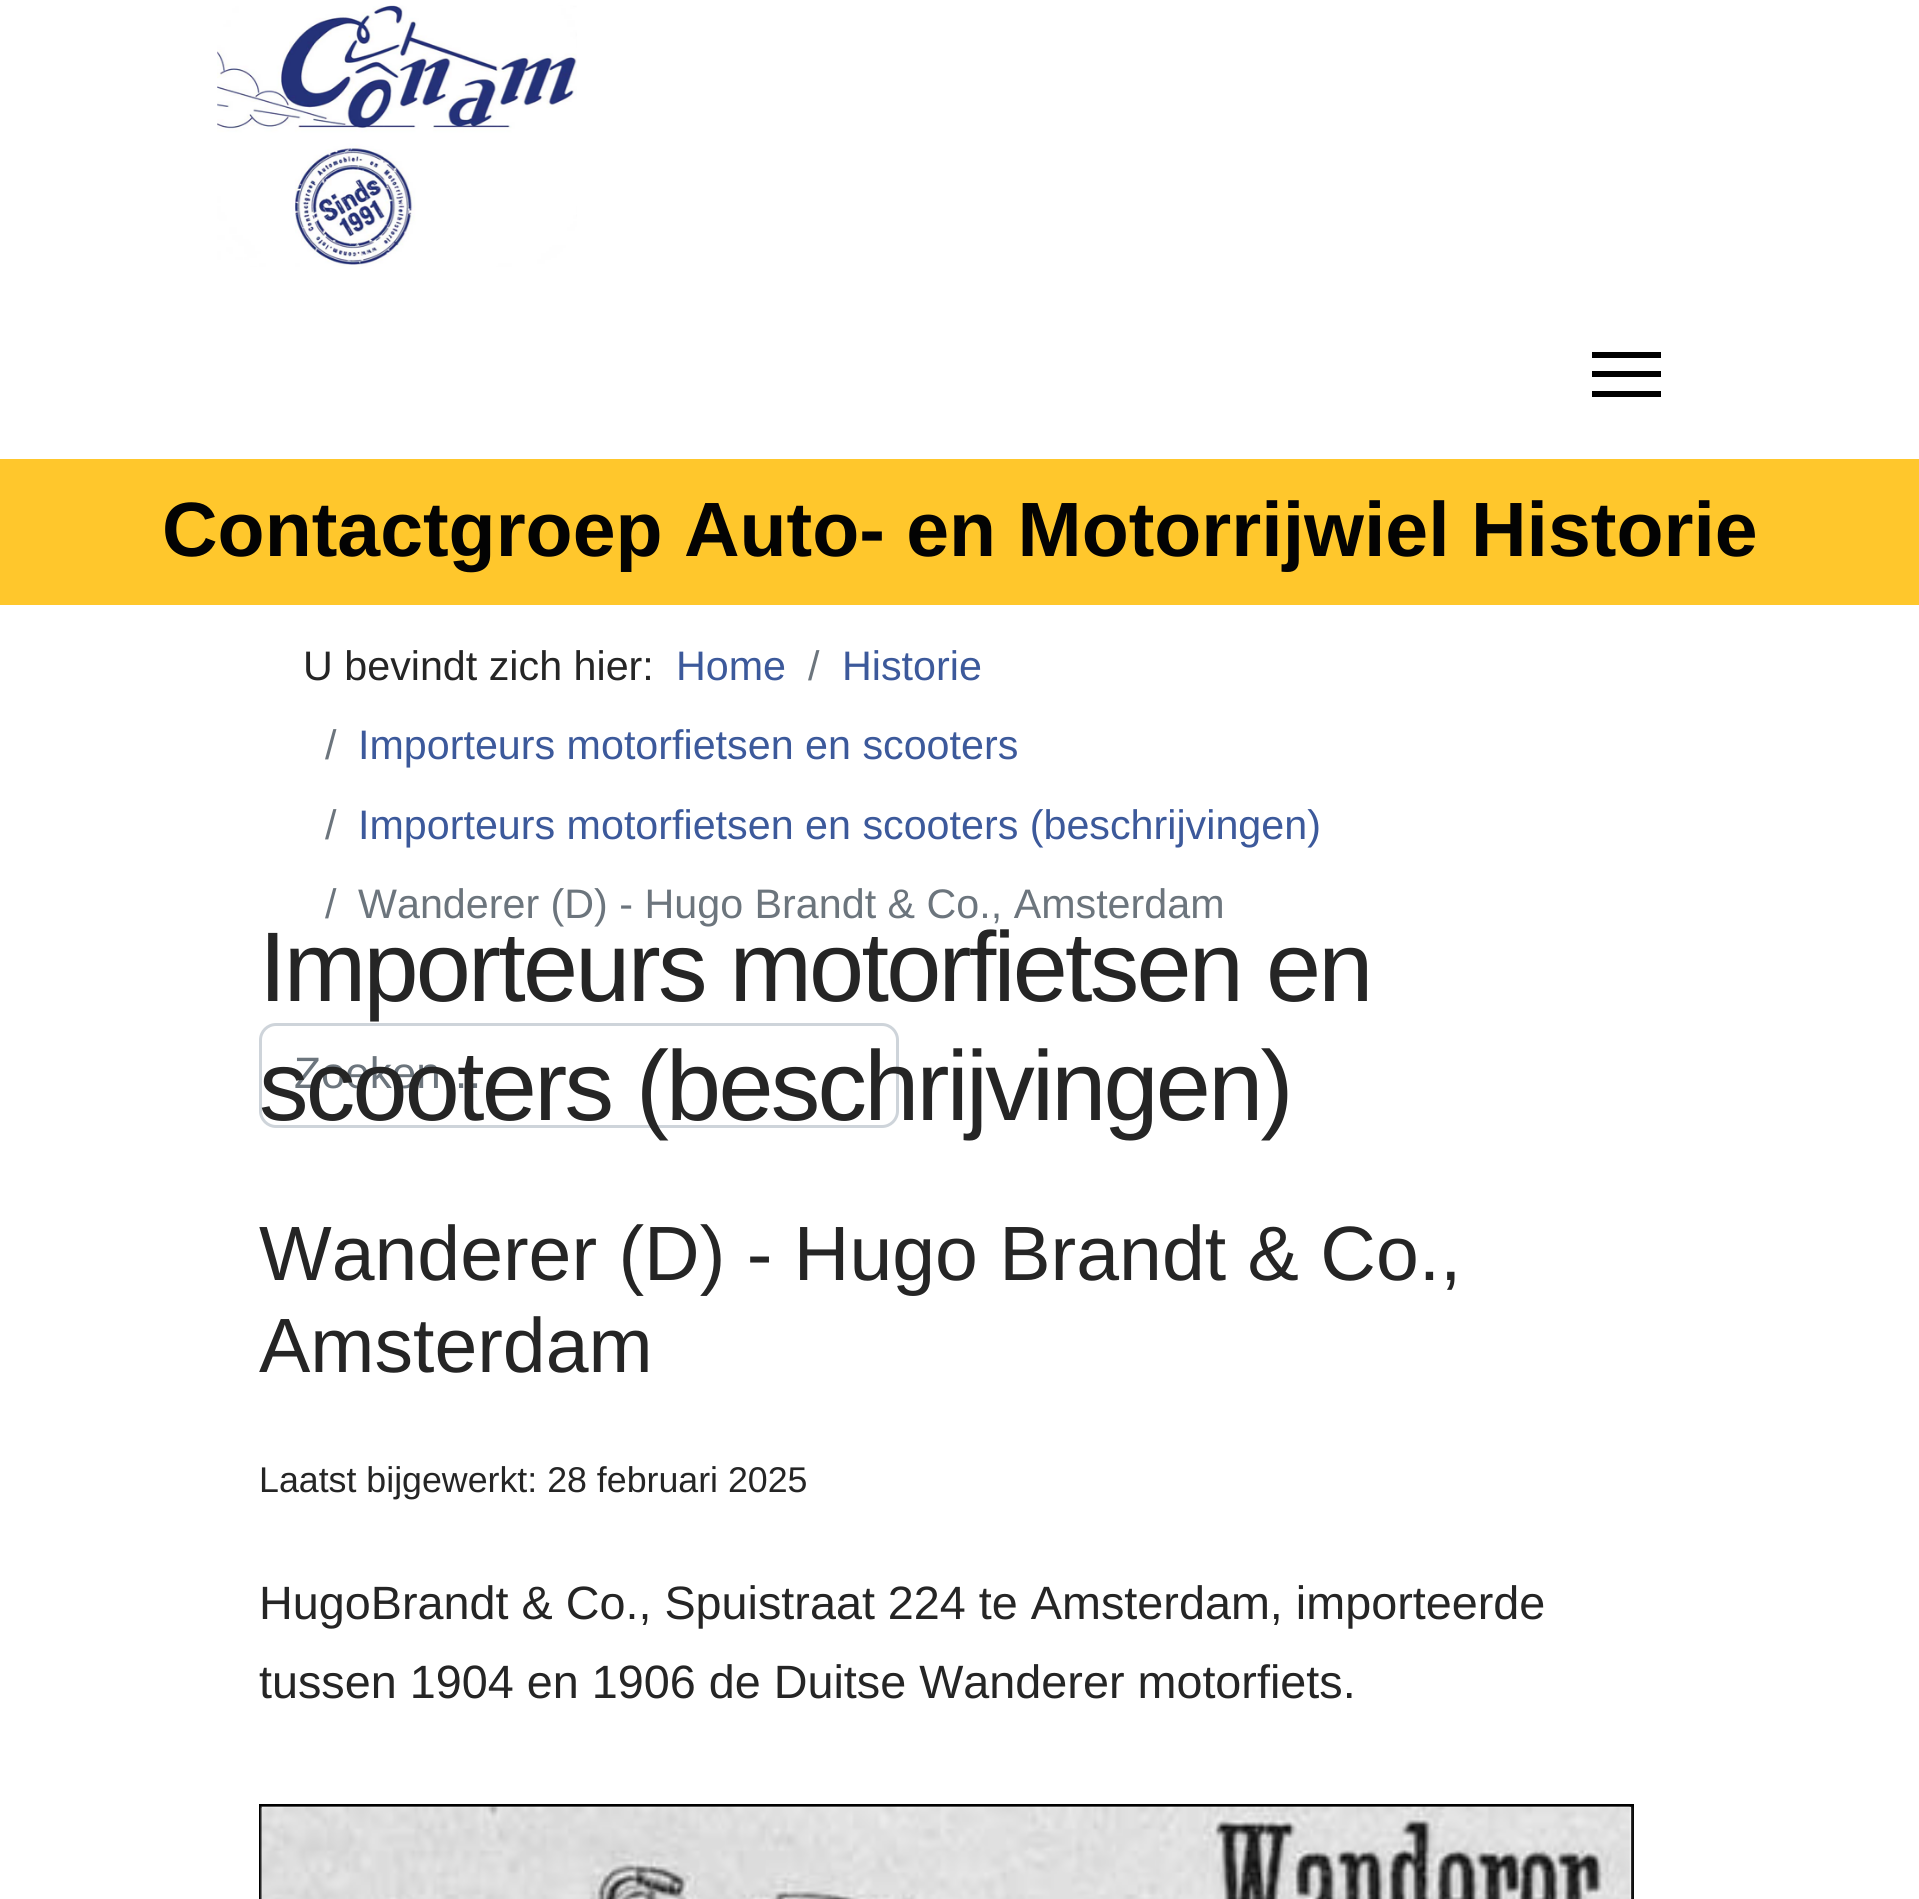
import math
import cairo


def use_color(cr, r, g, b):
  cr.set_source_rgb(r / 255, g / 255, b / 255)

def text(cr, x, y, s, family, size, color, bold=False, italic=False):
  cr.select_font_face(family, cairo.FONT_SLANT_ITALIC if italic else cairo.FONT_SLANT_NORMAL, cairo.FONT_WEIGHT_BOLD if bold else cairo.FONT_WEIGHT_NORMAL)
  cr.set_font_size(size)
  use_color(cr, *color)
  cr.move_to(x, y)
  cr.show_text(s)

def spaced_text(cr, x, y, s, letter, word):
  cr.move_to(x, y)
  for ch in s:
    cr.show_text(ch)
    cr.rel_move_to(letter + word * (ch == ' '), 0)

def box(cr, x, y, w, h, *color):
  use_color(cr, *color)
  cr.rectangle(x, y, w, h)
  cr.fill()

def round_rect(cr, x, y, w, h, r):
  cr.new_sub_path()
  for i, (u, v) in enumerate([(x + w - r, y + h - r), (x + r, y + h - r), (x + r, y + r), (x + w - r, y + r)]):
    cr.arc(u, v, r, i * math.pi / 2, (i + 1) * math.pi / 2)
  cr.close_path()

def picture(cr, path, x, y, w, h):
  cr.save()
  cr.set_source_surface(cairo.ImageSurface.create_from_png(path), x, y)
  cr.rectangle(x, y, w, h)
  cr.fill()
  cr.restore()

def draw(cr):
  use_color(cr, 255, 255, 255)
  cr.paint()
  picture(cr, "img_01.png", 217, 5, 360, 262)
  box(cr, 1592, 352, 69, 6, 0, 0, 0)
  box(cr, 1592, 371, 69, 6, 0, 0, 0)
  box(cr, 1592, 391, 69, 6, 0, 0, 0)
  box(cr, 0, 459, 1919, 146, 255, 199, 44)
  round_rect(cr, 260.5, 1024.5, 637, 102, 15.5)
  use_color(cr, 206, 212, 218)
  cr.set_line_width(3)
  cr.stroke()
  cr.rectangle(260.5, 1805.5, 1372, 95)
  use_color(cr, 0, 0, 0)
  cr.stroke()
  picture(cr, "img_02.png", 260, 1806, 1374, 93)
  text(cr, 162, 556, "Contactgroep Auto- en Motorrijwiel Historie", "Liberation Sans", 77, (3, 3, 3), bold=True)
  text(cr, 303, 680, "U bevindt zich hier:", "Liberation Sans", 41.25, (37, 37, 37))
  text(cr, 676, 680, "Home", "Liberation Sans", 41.25, (60, 89, 155))
  text(cr, 808, 680, "/", "Liberation Sans", 41.25, (108, 117, 125))
  text(cr, 842, 680, "Historie", "Liberation Sans", 41.25, (60, 89, 155))
  text(cr, 325, 759, "/", "Liberation Sans", 41.25, (108, 117, 125))
  text(cr, 358, 759, "Importeurs motorfietsen en scooters", "Liberation Sans", 41.25, (60, 89, 155))
  text(cr, 325, 839, "/", "Liberation Sans", 41.25, (108, 117, 125))
  text(cr, 358, 839, "Importeurs motorfietsen en scooters (beschrijvingen)", "Liberation Sans", 41.25, (60, 89, 155))
  text(cr, 325, 918, "/", "Liberation Sans", 41.25, (108, 117, 125))
  text(cr, 358, 918, "Wanderer (D) - Hugo Brandt & Co., Amsterdam", "Liberation Sans", 41.25, (108, 117, 125))
  text(cr, 294, 1088, "Zoeken …", "Liberation Sans", 44, (108, 117, 125))
  cr.set_font_size(99)
  use_color(cr, 37, 37, 37)
  spaced_text(cr, 259, 1001, "Importeurs motorfietsen en", -2.75, 0)
  spaced_text(cr, 259, 1120, "scooters (beschrijvingen)", -2.75, 0)
  text(cr, 259, 1280, "Wanderer (D) - Hugo Brandt & Co.,", "Liberation Sans", 77, (37, 37, 37))
  text(cr, 259, 1372, "Amsterdam", "Liberation Sans", 77, (37, 37, 37))
  text(cr, 259, 1492, "Laatst bijgewerkt: 28 februari 2025", "Liberation Sans", 35.75, (37, 37, 37))
  text(cr, 259, 1619, "HugoBrandt & Co., Spuistraat 224 te Amsterdam, importeerde", "Liberation Sans", 46.75, (37, 37, 37))
  text(cr, 259, 1698, "tussen 1904 en 1906 de Duitse Wanderer motorfiets.", "Liberation Sans", 46.75, (37, 37, 37))


surface = cairo.ImageSurface(cairo.FORMAT_RGB24, 1919, 1899)
cr = cairo.Context(surface)
options = cairo.FontOptions()
options.set_hint_metrics(cairo.HINT_METRICS_OFF)
options.set_hint_style(cairo.HINT_STYLE_NONE)
cr.set_font_options(options)
cr.set_miter_limit(4)
draw(cr)
surface.write_to_png("out.png")
